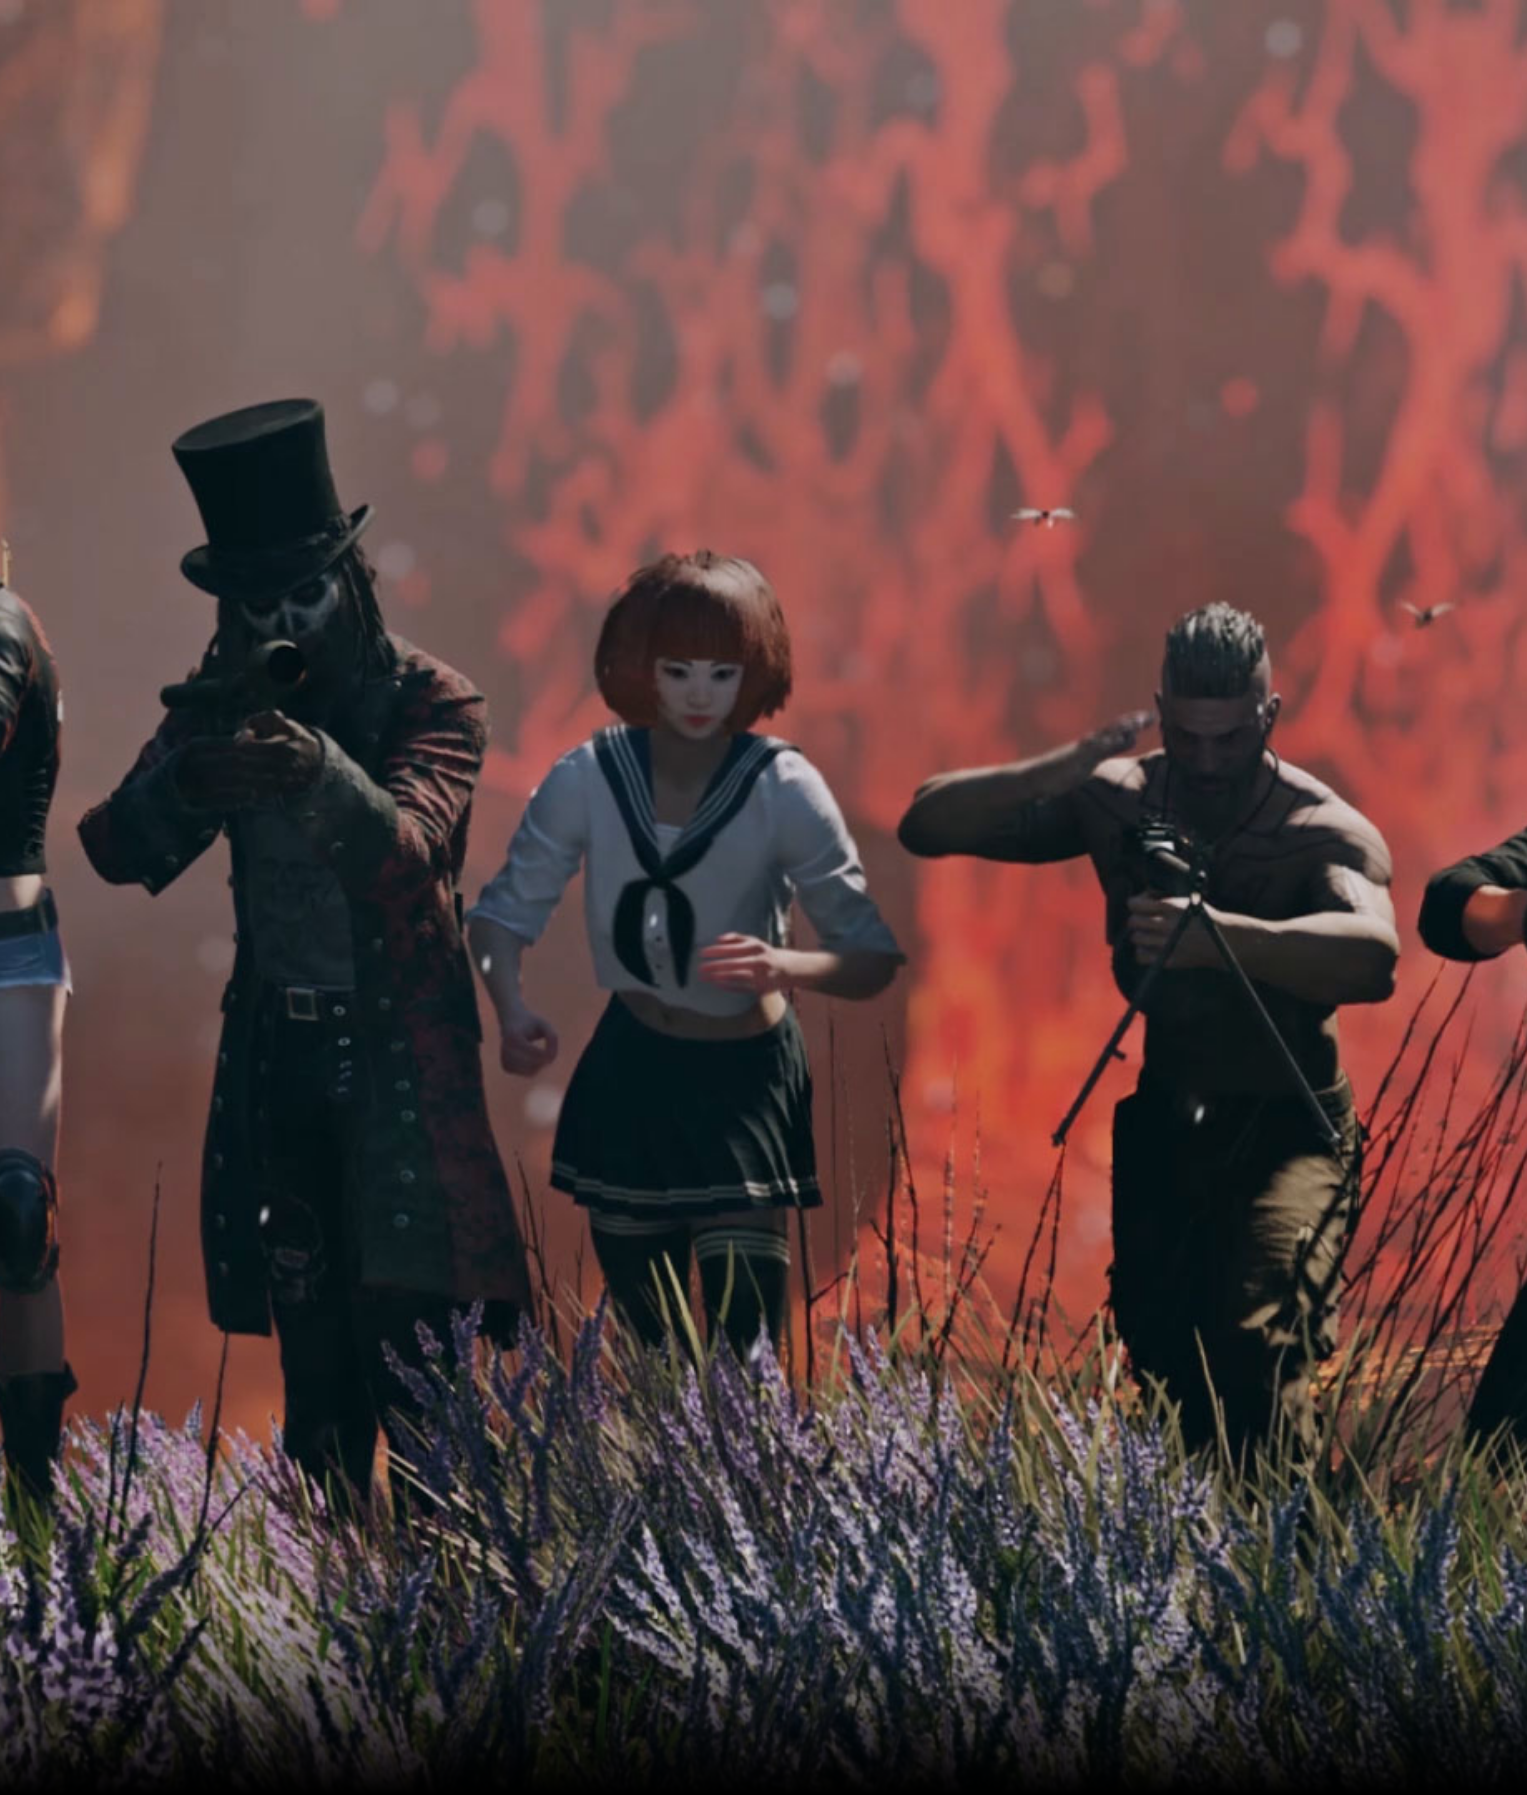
import math
import cairo


def use_color(cr, r, g, b):
  cr.set_source_rgb(r / 255, g / 255, b / 255)

def picture(cr, path, x, y, w, h):
  cr.save()
  cr.set_source_surface(cairo.ImageSurface.create_from_png(path), x, y)
  cr.rectangle(x, y, w, h)
  cr.fill()
  cr.restore()

def draw(cr):
  use_color(cr, 255, 255, 255)
  cr.paint()
  picture(cr, "img_01.png", 0, 0, 1527, 1795)


surface = cairo.ImageSurface(cairo.FORMAT_RGB24, 1527, 1795)
cr = cairo.Context(surface)
options = cairo.FontOptions()
options.set_hint_metrics(cairo.HINT_METRICS_OFF)
options.set_hint_style(cairo.HINT_STYLE_NONE)
cr.set_font_options(options)
cr.set_miter_limit(4)
draw(cr)
surface.write_to_png("out.png")
